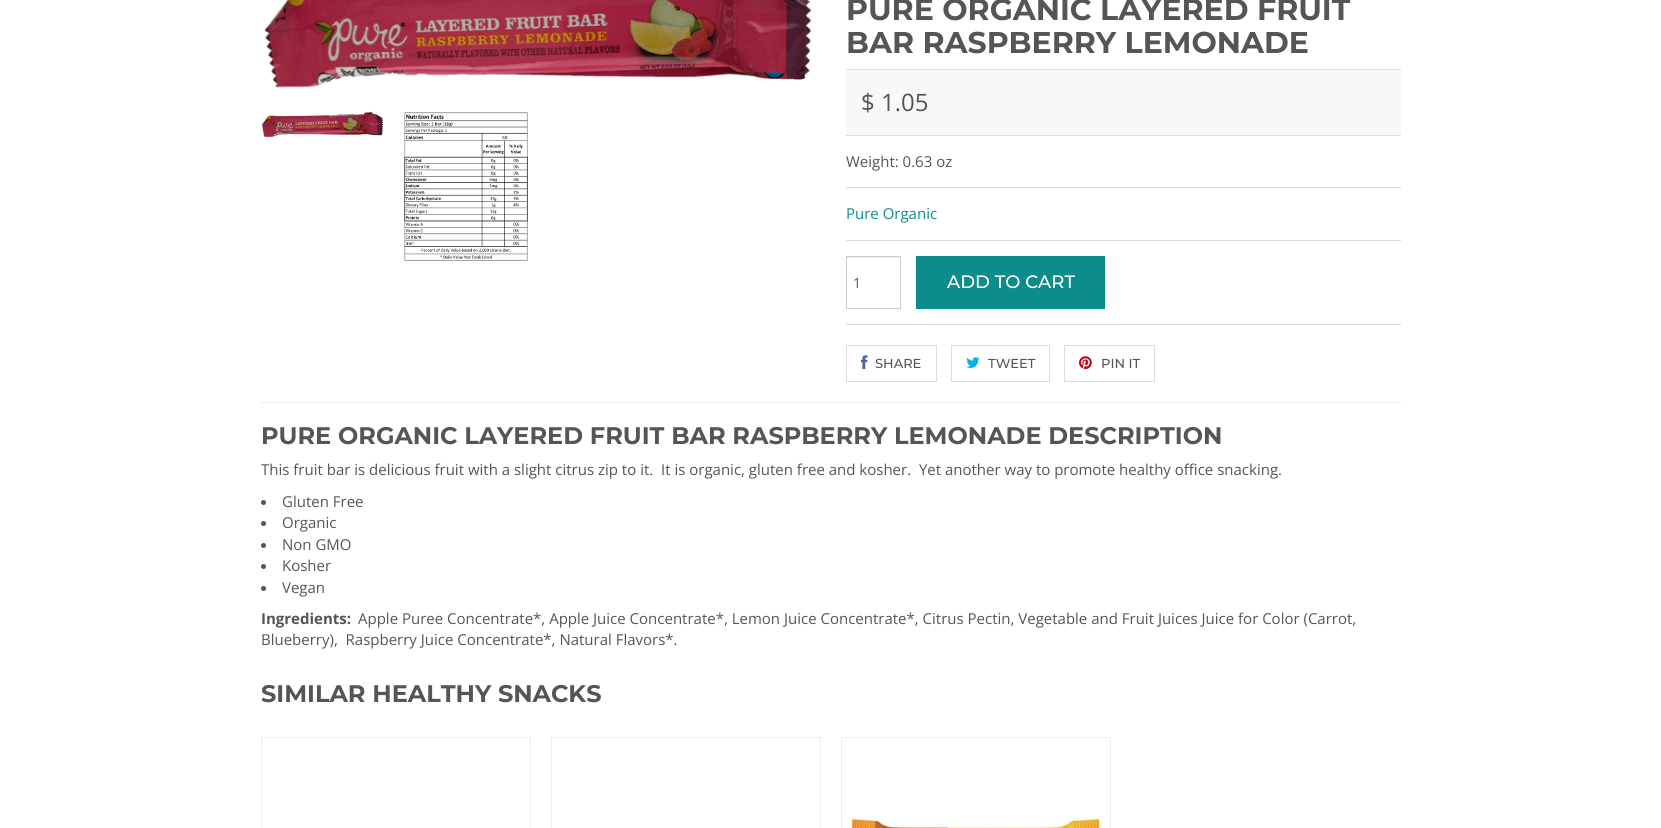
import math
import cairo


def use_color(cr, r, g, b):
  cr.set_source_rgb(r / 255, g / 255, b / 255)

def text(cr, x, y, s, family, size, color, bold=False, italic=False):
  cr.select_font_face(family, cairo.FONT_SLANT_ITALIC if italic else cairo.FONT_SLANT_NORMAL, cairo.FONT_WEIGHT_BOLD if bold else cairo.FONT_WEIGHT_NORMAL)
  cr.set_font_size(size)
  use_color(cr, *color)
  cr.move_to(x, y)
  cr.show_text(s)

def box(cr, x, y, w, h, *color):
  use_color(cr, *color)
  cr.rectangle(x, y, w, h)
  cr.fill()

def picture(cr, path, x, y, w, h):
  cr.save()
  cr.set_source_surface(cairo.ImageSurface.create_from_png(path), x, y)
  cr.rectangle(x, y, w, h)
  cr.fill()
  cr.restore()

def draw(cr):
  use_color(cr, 255, 255, 255)
  cr.paint()
  picture(cr, "img_01.png", 264, 0, 548, 88)
  picture(cr, "img_02.png", 261, 112, 123, 25)
  picture(cr, "img_03.png", 404, 112, 124, 149)
  box(cr, 846, 70, 555, 65, 248, 248, 248)
  box(cr, 846, 69, 555, 1, 219, 219, 219)
  box(cr, 846, 135, 555, 1, 219, 219, 219)
  box(cr, 846, 187, 555, 1, 219, 219, 219)
  box(cr, 846, 240, 555, 1, 219, 219, 219)
  box(cr, 846, 324, 555, 1, 219, 219, 219)
  box(cr, 847, 257, 53, 1, 236, 236, 236)
  cr.rectangle(846.5, 256.5, 54, 52)
  use_color(cr, 204, 204, 204)
  cr.set_line_width(1)
  cr.stroke()
  box(cr, 916, 256, 189, 53, 12, 141, 139)
  cr.rectangle(846.5, 345.5, 90, 36)
  use_color(cr, 221, 221, 221)
  cr.stroke()
  picture(cr, "img_04.png", 861, 355, 7, 15)
  cr.rectangle(951.5, 345.5, 98, 36)
  cr.stroke()
  picture(cr, "img_05.png", 966, 357, 14, 11)
  cr.rectangle(1064.5, 345.5, 90, 36)
  cr.stroke()
  picture(cr, "img_06.png", 1079, 356, 13, 14)
  box(cr, 261, 402, 1140, 1, 238, 238, 238)
  use_color(cr, 85, 85, 85)
  cr.arc(263.5, 502.5, 2.5, 0, 2 * math.pi)
  cr.fill()
  cr.arc(263.5, 523.5, 2.5, 0, 2 * math.pi)
  cr.fill()
  cr.arc(263.5, 545.5, 2.5, 0, 2 * math.pi)
  cr.fill()
  cr.arc(263.5, 566.5, 2.5, 0, 2 * math.pi)
  cr.fill()
  cr.arc(263.5, 588.5, 2.5, 0, 2 * math.pi)
  cr.fill()
  cr.rectangle(261.5, 737.5, 269, 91)
  use_color(cr, 238, 238, 238)
  cr.stroke()
  cr.rectangle(551.5, 737.5, 269, 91)
  cr.stroke()
  cr.rectangle(841.5, 737.5, 269, 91)
  cr.stroke()
  picture(cr, "img_07.png", 851, 817, 249, 11)
  text(cr, 846, 20, "PURE ORGANIC LAYERED FRUIT", "Montserrat", 30, (85, 85, 85), bold=True)
  text(cr, 846, 53, "BAR RASPBERRY LEMONADE", "Montserrat", 30, (85, 85, 85), bold=True)
  text(cr, 861, 111, "$ 1.05", "Open Sans", 24, (85, 85, 85))
  text(cr, 846, 167, "Weight: 0.63 oz", "Open Sans", 15, (85, 85, 85))
  text(cr, 846, 219, "Pure Organic", "Open Sans", 15, (12, 141, 139))
  text(cr, 853, 288, "1", "Open Sans", 14, (85, 85, 85))
  text(cr, 947, 288, "ADD TO CART", "Montserrat Medium", 18, (255, 255, 255))
  text(cr, 875, 368, "SHARE", "Montserrat Medium", 13, (85, 85, 85))
  text(cr, 988, 368, "TWEET", "Montserrat Medium", 13, (85, 85, 85))
  text(cr, 1101, 368, "PIN IT", "Montserrat Medium", 13, (85, 85, 85))
  text(cr, 261, 444, "PURE ORGANIC LAYERED FRUIT BAR RASPBERRY LEMONADE DESCRIPTION", "Montserrat", 24, (85, 85, 85), bold=True)
  text(cr, 261, 475, "This fruit bar is delicious fruit with a slight citrus zip to it.  It is organic, gluten free and kosher.  Yet another way to promote healthy office snacking.", "Open Sans", 15, (85, 85, 85))
  text(cr, 282, 507, "Gluten Free", "Open Sans", 15, (85, 85, 85))
  text(cr, 282, 528, "Organic", "Open Sans", 15, (85, 85, 85))
  text(cr, 282, 550, "Non GMO", "Open Sans", 15, (85, 85, 85))
  text(cr, 282, 571, "Kosher", "Open Sans", 15, (85, 85, 85))
  text(cr, 282, 593, "Vegan", "Open Sans", 15, (85, 85, 85))
  text(cr, 261, 624, "Ingredients:", "Open Sans", 15, (85, 85, 85), bold=True)
  text(cr, 358, 624, "Apple Puree Concentrate*, Apple Juice Concentrate*, Lemon Juice Concentrate*, Citrus Pectin, Vegetable and Fruit Juices Juice for Color (Carrot,", "Open Sans", 15, (85, 85, 85))
  text(cr, 261, 645, "Blueberry),  Raspberry Juice Concentrate*, Natural Flavors*.", "Open Sans", 15, (85, 85, 85))
  text(cr, 261, 702, "SIMILAR HEALTHY SNACKS", "Montserrat", 24, (85, 85, 85), bold=True)


surface = cairo.ImageSurface(cairo.FORMAT_RGB24, 1661, 828)
cr = cairo.Context(surface)
options = cairo.FontOptions()
options.set_hint_metrics(cairo.HINT_METRICS_OFF)
options.set_hint_style(cairo.HINT_STYLE_NONE)
cr.set_font_options(options)
cr.set_miter_limit(4)
draw(cr)
surface.write_to_png("out.png")
